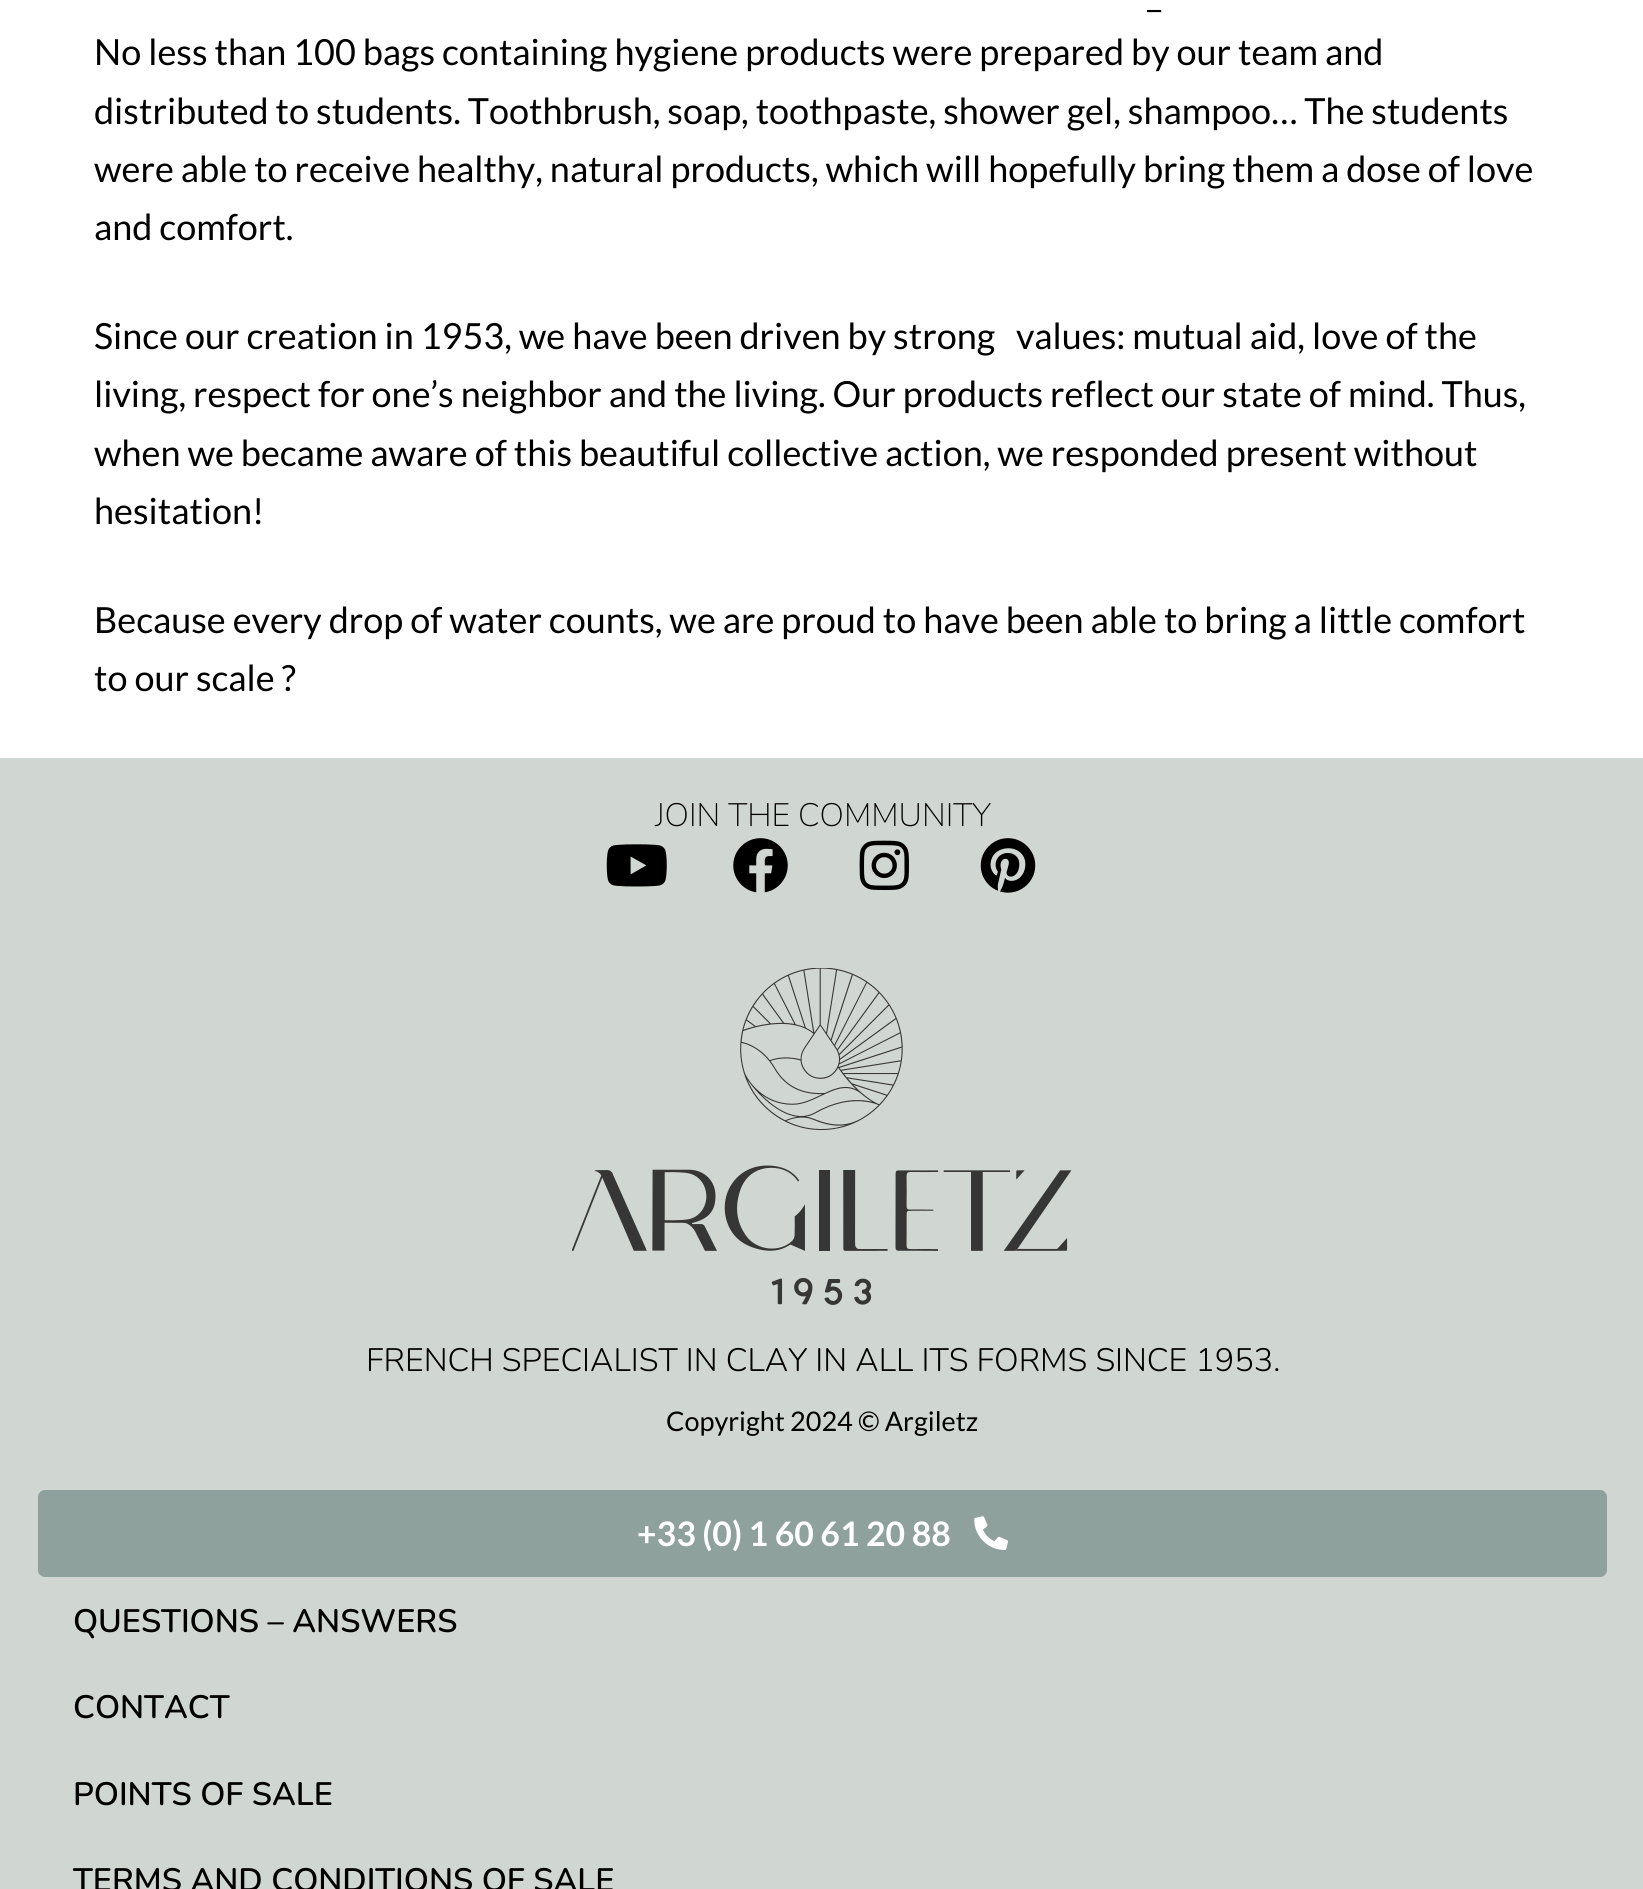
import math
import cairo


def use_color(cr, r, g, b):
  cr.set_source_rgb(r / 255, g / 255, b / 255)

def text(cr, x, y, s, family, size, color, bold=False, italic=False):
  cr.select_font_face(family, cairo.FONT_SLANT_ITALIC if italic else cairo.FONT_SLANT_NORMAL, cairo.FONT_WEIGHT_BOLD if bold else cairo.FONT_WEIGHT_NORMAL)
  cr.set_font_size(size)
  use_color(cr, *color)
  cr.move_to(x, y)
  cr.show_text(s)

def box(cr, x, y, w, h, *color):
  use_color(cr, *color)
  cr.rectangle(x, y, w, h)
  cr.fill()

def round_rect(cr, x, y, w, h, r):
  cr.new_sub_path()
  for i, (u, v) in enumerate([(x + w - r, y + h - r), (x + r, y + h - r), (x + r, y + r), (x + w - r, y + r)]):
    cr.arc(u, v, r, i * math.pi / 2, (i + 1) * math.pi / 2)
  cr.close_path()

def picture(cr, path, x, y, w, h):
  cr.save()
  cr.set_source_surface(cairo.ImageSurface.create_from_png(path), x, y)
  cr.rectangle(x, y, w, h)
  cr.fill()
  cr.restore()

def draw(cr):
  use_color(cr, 255, 255, 255)
  cr.paint()
  box(cr, 0, 758, 1643, 1131, 208, 214, 209)
  picture(cr, "img_01.png", 606, 844, 61, 43)
  picture(cr, "img_02.png", 733, 838, 55, 55)
  picture(cr, "img_03.png", 859, 840, 50, 50)
  picture(cr, "img_04.png", 980, 838, 56, 55)
  picture(cr, "img_05.png", 572, 968, 500, 337)
  use_color(cr, 143, 161, 156)
  round_rect(cr, 38, 1490, 1569, 87, 7)
  cr.fill()
  picture(cr, "img_06.png", 974, 1516, 34, 34)
  text(cr, 1147, 7, "_", "Lato", 36, (0, 0, 0))
  text(cr, 94, 65, "No less than 100 bags containing hygiene products were prepared by our team and", "Lato", 36, (0, 0, 0))
  text(cr, 94, 124, "distributed to students. Toothbrush, soap, toothpaste, shower gel, shampoo… The students", "Lato", 36, (0, 0, 0))
  text(cr, 94, 182, "were able to receive healthy, natural products, which will hopefully bring them a dose of love", "Lato", 36, (0, 0, 0))
  text(cr, 94, 240, "and comfort.", "Lato", 36, (0, 0, 0))
  text(cr, 94, 349, "Since our creation in 1953, we have been driven by strong   values: mutual aid, love of the", "Lato", 36, (0, 0, 0))
  text(cr, 94, 407, "living, respect for one’s neighbor and the living. Our products reflect our state of mind. Thus,", "Lato", 36, (0, 0, 0))
  text(cr, 94, 466, "when we became aware of this beautiful collective action, we responded present without", "Lato", 36, (0, 0, 0))
  text(cr, 94, 524, "hesitation!", "Lato", 36, (0, 0, 0))
  text(cr, 94, 633, "Because every drop of water counts, we are proud to have been able to bring a little comfort", "Lato", 36, (0, 0, 0))
  text(cr, 94, 691, "to our scale ?", "Lato", 36, (0, 0, 0))
  text(cr, 655, 826, "JOIN THE COMMUNITY", "Nunito ExtraLight", 32.4, (0, 0, 0))
  text(cr, 366, 1371, "FRENCH SPECIALIST IN CLAY IN ALL ITS FORMS SINCE 1953.", "Nunito Light", 32.4, (0, 0, 0))
  text(cr, 666, 1431, "Copyright 2024 © Argiletz", "Lato", 27, (0, 0, 0))
  text(cr, 637, 1546, "+33 (0) 1 60 61 20 88", "Lato", 33.75, (255, 255, 255), bold=True)
  text(cr, 73, 1632, "QUESTIONS – ANSWERS", "Nunito SemiBold", 32.4, (0, 0, 0))
  text(cr, 73, 1718, "CONTACT", "Nunito SemiBold", 32.4, (0, 0, 0))
  text(cr, 73, 1805, "POINTS OF SALE", "Nunito SemiBold", 32.4, (0, 0, 0))
  text(cr, 73, 1891, "TERMS AND CONDITIONS OF SALE", "Nunito SemiBold", 32.4, (0, 0, 0))


surface = cairo.ImageSurface(cairo.FORMAT_RGB24, 1643, 1889)
cr = cairo.Context(surface)
options = cairo.FontOptions()
options.set_hint_metrics(cairo.HINT_METRICS_OFF)
options.set_hint_style(cairo.HINT_STYLE_NONE)
cr.set_font_options(options)
cr.set_miter_limit(4)
draw(cr)
surface.write_to_png("out.png")
